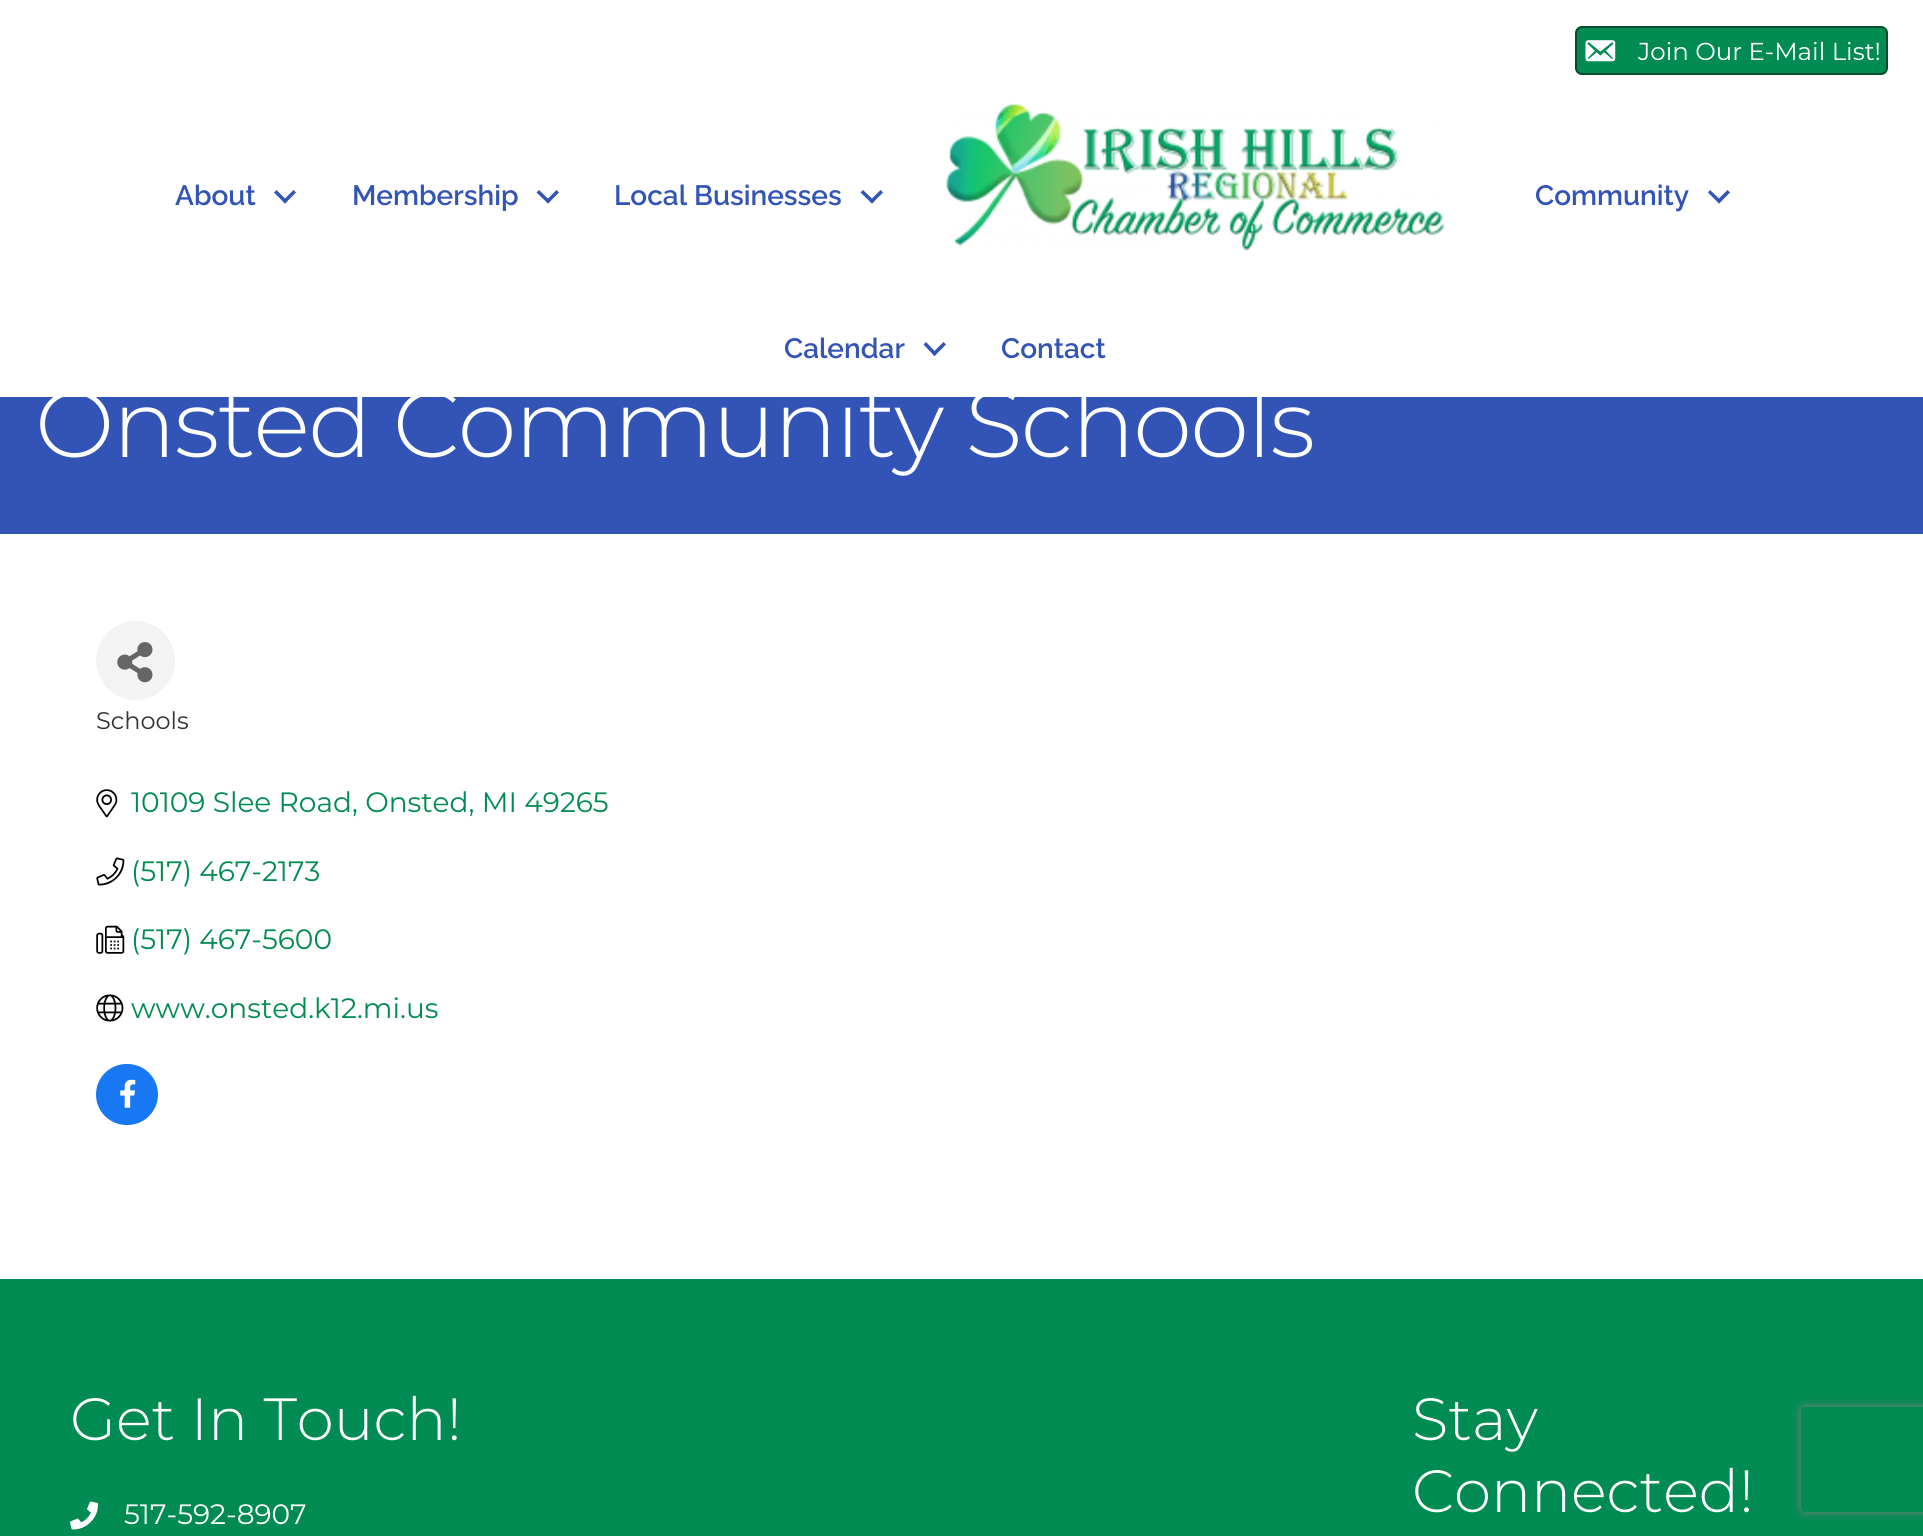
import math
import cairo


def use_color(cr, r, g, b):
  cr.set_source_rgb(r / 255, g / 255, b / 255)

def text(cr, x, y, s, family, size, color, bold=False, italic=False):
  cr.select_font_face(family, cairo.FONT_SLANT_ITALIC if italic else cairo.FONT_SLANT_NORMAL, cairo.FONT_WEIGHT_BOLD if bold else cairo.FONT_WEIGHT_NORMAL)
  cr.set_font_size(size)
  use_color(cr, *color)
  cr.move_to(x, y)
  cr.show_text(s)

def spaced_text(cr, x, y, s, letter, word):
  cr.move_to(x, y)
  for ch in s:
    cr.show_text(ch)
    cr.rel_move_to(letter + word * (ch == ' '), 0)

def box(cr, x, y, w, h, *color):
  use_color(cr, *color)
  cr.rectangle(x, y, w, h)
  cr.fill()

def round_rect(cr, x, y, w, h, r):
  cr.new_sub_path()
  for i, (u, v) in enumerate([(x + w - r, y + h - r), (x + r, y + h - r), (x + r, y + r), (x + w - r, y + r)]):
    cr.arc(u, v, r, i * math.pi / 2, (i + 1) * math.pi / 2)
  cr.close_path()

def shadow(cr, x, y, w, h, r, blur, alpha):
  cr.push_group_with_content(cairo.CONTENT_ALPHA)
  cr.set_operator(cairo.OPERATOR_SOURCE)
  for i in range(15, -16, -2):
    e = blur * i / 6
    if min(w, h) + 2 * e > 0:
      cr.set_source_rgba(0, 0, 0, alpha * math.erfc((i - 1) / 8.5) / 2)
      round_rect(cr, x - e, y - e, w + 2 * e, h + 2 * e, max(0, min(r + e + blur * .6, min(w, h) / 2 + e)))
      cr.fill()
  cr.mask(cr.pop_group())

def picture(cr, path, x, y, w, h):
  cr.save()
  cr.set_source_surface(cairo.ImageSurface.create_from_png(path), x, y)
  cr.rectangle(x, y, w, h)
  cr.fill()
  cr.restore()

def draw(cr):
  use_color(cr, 255, 255, 255)
  cr.paint()
  use_color(cr, 0, 139, 82)
  round_rect(cr, 1576, 27, 311, 47, 6)
  cr.fill_preserve()
  use_color(cr, 0, 78, 46)
  cr.stroke()
  picture(cr, "img_01.png", 1585, 40, 31, 22)
  use_color(cr, 50, 84, 182)
  cr.new_path()
  cr.move_to(293.5, 190)
  cr.line_to(296, 192.5)
  cr.line_to(285, 203.5)
  cr.line_to(282.5, 201)
  cr.close_path()
  cr.fill()
  cr.new_path()
  cr.move_to(276.5, 190)
  cr.line_to(287.5, 201)
  cr.line_to(285, 203.5)
  cr.line_to(274, 192.5)
  cr.close_path()
  cr.fill()
  cr.new_path()
  cr.move_to(556.5, 190)
  cr.line_to(559, 192.5)
  cr.line_to(548, 203.5)
  cr.line_to(545.5, 201)
  cr.close_path()
  cr.fill()
  cr.new_path()
  cr.move_to(539, 190)
  cr.line_to(550.5, 201)
  cr.line_to(548, 203.5)
  cr.line_to(536.5, 192.5)
  cr.close_path()
  cr.fill()
  cr.new_path()
  cr.move_to(880.5, 190)
  cr.line_to(883, 192.5)
  cr.line_to(872, 203.5)
  cr.line_to(869.5, 201)
  cr.close_path()
  cr.fill()
  cr.new_path()
  cr.move_to(863, 190)
  cr.line_to(874.5, 201)
  cr.line_to(872, 203.5)
  cr.line_to(860.5, 192.5)
  cr.close_path()
  cr.fill()
  picture(cr, "img_02.png", 946, 103, 499, 148)
  cr.new_path()
  cr.move_to(1727.5, 190)
  cr.line_to(1730, 192.5)
  cr.line_to(1719, 203.5)
  cr.line_to(1716.5, 201)
  cr.close_path()
  cr.fill()
  cr.new_path()
  cr.move_to(1710, 190)
  cr.line_to(1721.5, 201)
  cr.line_to(1719, 203.5)
  cr.line_to(1708, 192.5)
  cr.close_path()
  cr.fill()
  cr.new_path()
  cr.move_to(943.5, 342)
  cr.line_to(946, 344.5)
  cr.line_to(934.5, 356)
  cr.line_to(932, 353.5)
  cr.close_path()
  cr.fill()
  cr.new_path()
  cr.move_to(926, 342)
  cr.line_to(937, 353.5)
  cr.line_to(934.5, 356)
  cr.line_to(923.5, 344.5)
  cr.close_path()
  cr.fill()
  box(cr, 0, 397, 1923, 137, 50, 84, 182)
  use_color(cr, 243, 243, 243)
  cr.arc(135.5, 660.5, 39.5, 0, 2 * math.pi)
  cr.fill()
  picture(cr, "img_03.png", 117, 642, 36, 41)
  picture(cr, "img_04.png", 96, 789, 22, 29)
  picture(cr, "img_05.png", 96, 857, 29, 29)
  picture(cr, "img_06.png", 96, 925, 29, 29)
  picture(cr, "img_07.png", 96, 994, 28, 28)
  use_color(cr, 24, 119, 242)
  round_rect(cr, 96, 1064, 62, 61, 30.5)
  cr.fill()
  picture(cr, "img_08.png", 120, 1079, 16, 29)
  box(cr, 0, 1279, 1923, 257, 0, 139, 82)
  picture(cr, "img_09.png", 70, 1501, 29, 29)
  cr.save()
  cr.set_fill_rule(cairo.FILL_RULE_EVEN_ODD)
  cr.new_path()
  cr.move_to(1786, 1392)
  cr.line_to(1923, 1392)
  cr.line_to(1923, 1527)
  cr.line_to(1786, 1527)
  cr.close_path()
  cr.move_to(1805, 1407)
  cr.line_to(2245, 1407)
  cr.curve_to(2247, 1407, 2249, 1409, 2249, 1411)
  cr.line_to(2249, 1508)
  cr.curve_to(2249, 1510, 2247, 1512, 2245, 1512)
  cr.line_to(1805, 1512)
  cr.curve_to(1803, 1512, 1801, 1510, 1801, 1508)
  cr.line_to(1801, 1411)
  cr.curve_to(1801, 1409, 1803, 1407, 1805, 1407)
  cr.close_path()
  cr.clip()
  use_color(cr, 128, 128, 128)
  shadow(cr, 1801, 1407, 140, 105, 4, 4.5, 1)
  cr.restore()
  text(cr, 1638, 60, "Join Our E-Mail List!", "Montserrat", 24.5, (255, 255, 255))
  text(cr, 175, 205, "About", "Raleway Thin", 28, (50, 84, 182))
  text(cr, 352, 205, "Membership", "Raleway Thin", 28, (50, 84, 182))
  text(cr, 614, 205, "Local Businesses", "Raleway Thin", 28, (50, 84, 182))
  text(cr, 1535, 205, "Community", "Raleway Thin", 28, (50, 84, 182))
  text(cr, 784, 358, "Calendar", "Raleway Thin", 28, (50, 84, 182))
  text(cr, 1001, 358, "Contact", "Raleway Thin", 28, (50, 84, 182))
  cr.select_font_face("Montserrat Light")
  cr.set_font_size(94.5)
  use_color(cr, 255, 255, 255)
  spaced_text(cr, 35, 457, "Onsted Community Schools", -1.75, 0)
  text(cr, 96, 729, "Schools", "Montserrat", 24, (51, 51, 51))
  text(cr, 131, 812, "10109 Slee Road, Onsted, MI 49265", "Montserrat", 28, (0, 139, 82))
  text(cr, 131, 881, "(517) 467-2173", "Montserrat", 28, (0, 139, 82))
  text(cr, 131, 949, "(517) 467-5600", "Montserrat", 28, (0, 139, 82))
  text(cr, 131, 1018, "www.onsted.k12.mi.us", "Montserrat", 28, (0, 139, 82))
  text(cr, 70, 1440, "Get In Touch!", "Montserrat Light", 59.5, (255, 255, 255))
  text(cr, 124, 1524, "517-592-8907", "Montserrat", 28, (255, 255, 255))
  text(cr, 1412, 1440, "Stay", "Montserrat Light", 59.5, (255, 255, 255))
  text(cr, 1412, 1512, "Connected!", "Montserrat Light", 59.5, (255, 255, 255))


surface = cairo.ImageSurface(cairo.FORMAT_RGB24, 1923, 1536)
cr = cairo.Context(surface)
options = cairo.FontOptions()
options.set_hint_metrics(cairo.HINT_METRICS_OFF)
options.set_hint_style(cairo.HINT_STYLE_NONE)
cr.set_font_options(options)
cr.set_miter_limit(4)
draw(cr)
surface.write_to_png("out.png")
